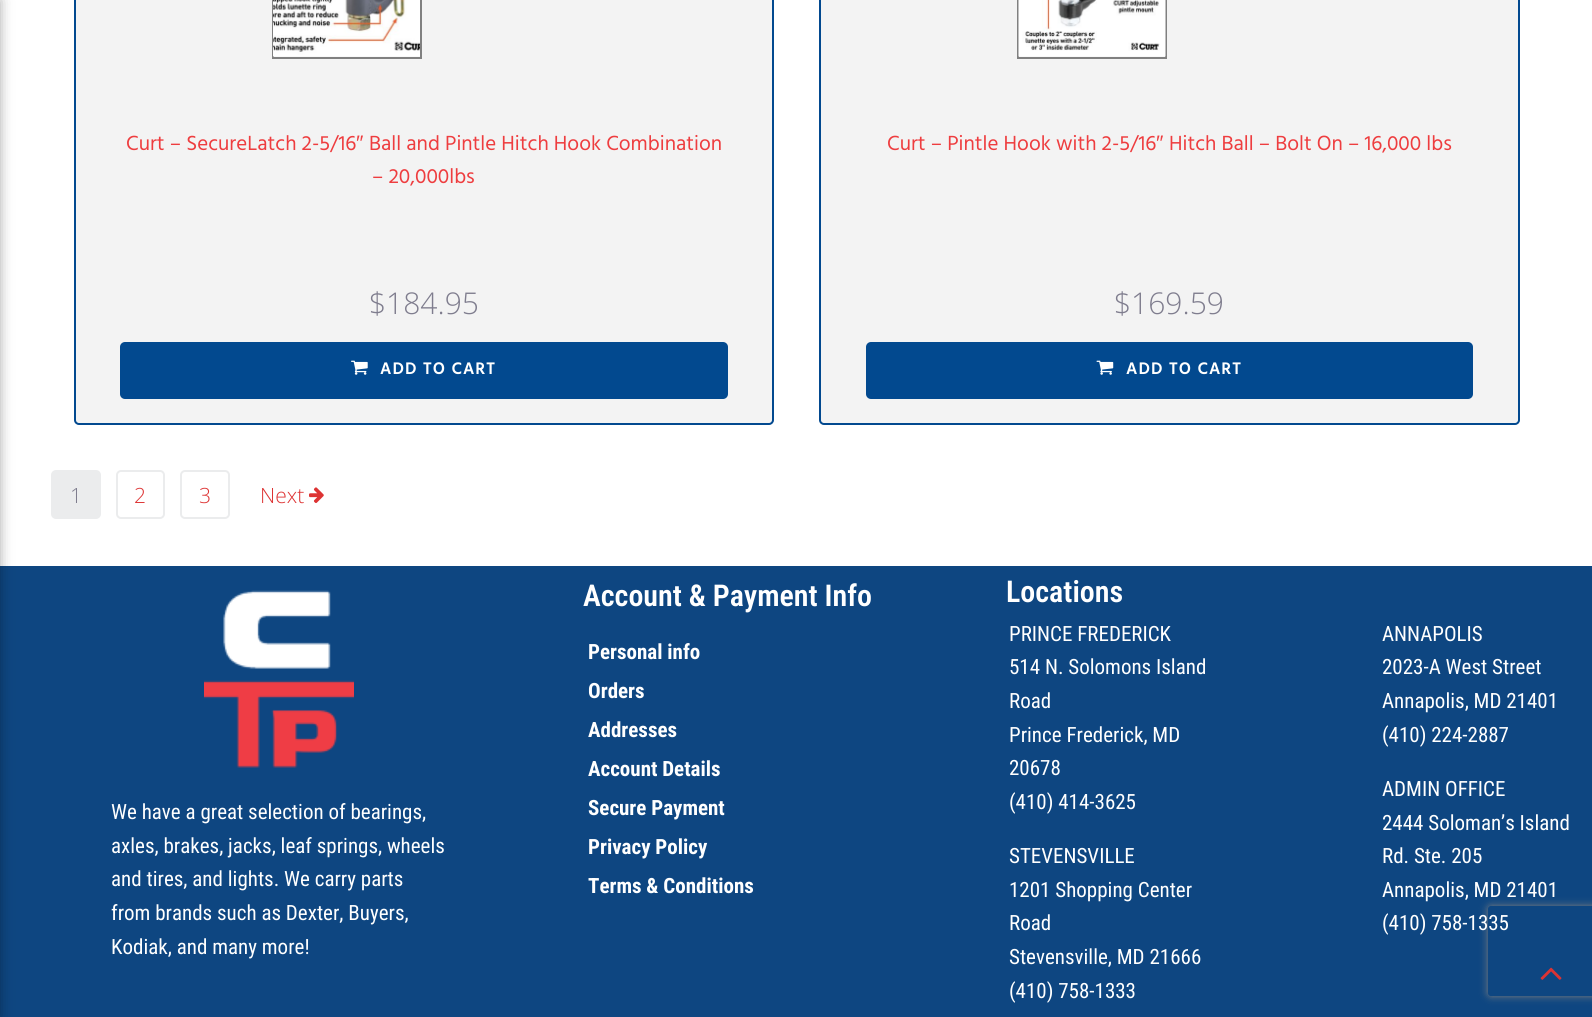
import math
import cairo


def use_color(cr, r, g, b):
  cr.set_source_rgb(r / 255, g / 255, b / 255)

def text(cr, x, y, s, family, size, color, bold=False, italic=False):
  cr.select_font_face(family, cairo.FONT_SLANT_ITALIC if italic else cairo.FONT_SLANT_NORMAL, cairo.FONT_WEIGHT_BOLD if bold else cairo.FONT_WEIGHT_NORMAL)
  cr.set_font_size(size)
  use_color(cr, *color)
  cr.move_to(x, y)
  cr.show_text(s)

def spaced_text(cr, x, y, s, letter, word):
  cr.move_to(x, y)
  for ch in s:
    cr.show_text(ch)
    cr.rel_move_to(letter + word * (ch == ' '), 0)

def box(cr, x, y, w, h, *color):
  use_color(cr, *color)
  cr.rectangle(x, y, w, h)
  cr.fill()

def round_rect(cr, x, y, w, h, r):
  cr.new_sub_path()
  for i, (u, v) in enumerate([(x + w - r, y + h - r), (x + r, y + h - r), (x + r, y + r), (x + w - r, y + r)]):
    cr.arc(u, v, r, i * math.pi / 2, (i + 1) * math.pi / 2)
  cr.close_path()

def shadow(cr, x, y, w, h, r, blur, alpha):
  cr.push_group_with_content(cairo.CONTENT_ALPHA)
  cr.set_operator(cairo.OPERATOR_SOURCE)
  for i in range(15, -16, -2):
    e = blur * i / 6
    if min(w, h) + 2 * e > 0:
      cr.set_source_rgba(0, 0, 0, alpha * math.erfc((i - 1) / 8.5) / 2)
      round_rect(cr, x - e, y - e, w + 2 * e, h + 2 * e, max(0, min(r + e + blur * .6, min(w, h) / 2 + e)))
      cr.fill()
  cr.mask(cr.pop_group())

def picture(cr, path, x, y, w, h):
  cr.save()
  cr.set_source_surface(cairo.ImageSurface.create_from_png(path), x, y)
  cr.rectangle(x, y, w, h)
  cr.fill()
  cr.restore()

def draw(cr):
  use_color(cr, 255, 255, 255)
  cr.paint()
  box(cr, 0, 566, 1592, 451, 14, 70, 129)
  use_color(cr, 0, 0, 0)
  shadow(cr, -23, 0, 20, 1017, 0, 7.5, 0.5)
  use_color(cr, 243, 243, 243)
  round_rect(cr, 75, -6, 698, 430, 4)
  cr.fill_preserve()
  use_color(cr, 2, 73, 143)
  cr.stroke()
  cr.rectangle(273, -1, 148, 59)
  use_color(cr, 128, 128, 128)
  cr.stroke()
  picture(cr, "img_01.png", 273, 0, 147, 57)
  use_color(cr, 2, 73, 143)
  round_rect(cr, 120, 342, 608, 57, 5)
  cr.fill()
  picture(cr, "img_02.png", 351, 360, 17, 15)
  use_color(cr, 243, 243, 243)
  round_rect(cr, 820, -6, 699, 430, 4)
  cr.fill_preserve()
  use_color(cr, 2, 73, 143)
  cr.stroke()
  cr.rectangle(1018, -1, 148, 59)
  use_color(cr, 128, 128, 128)
  cr.stroke()
  picture(cr, "img_03.png", 1018, 0, 148, 57)
  use_color(cr, 2, 73, 143)
  round_rect(cr, 866, 342, 607, 57, 5)
  cr.fill()
  picture(cr, "img_04.png", 1096, 360, 18, 15)
  use_color(cr, 235, 236, 237)
  round_rect(cr, 52, 471, 48, 47, 4)
  cr.fill_preserve()
  cr.stroke()
  round_rect(cr, 117, 471, 47, 47, 4)
  cr.stroke()
  round_rect(cr, 181, 471, 48, 47, 4)
  cr.stroke()
  picture(cr, "img_05.png", 309, 487, 15, 16)
  picture(cr, "img_06.png", 204, 590, 150, 178)
  cr.save()
  cr.set_fill_rule(cairo.FILL_RULE_EVEN_ODD)
  cr.new_path()
  cr.move_to(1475, 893)
  cr.line_to(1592, 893)
  cr.line_to(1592, 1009)
  cr.line_to(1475, 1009)
  cr.close_path()
  cr.move_to(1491, 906)
  cr.line_to(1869, 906)
  cr.curve_to(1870.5, 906, 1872, 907.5, 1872, 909)
  cr.line_to(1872, 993)
  cr.curve_to(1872, 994.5, 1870.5, 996, 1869, 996)
  cr.line_to(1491, 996)
  cr.curve_to(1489.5, 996, 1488, 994.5, 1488, 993)
  cr.line_to(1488, 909)
  cr.curve_to(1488, 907.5, 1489.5, 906, 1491, 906)
  cr.close_path()
  cr.clip()
  use_color(cr, 128, 128, 128)
  shadow(cr, 1488, 906, 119, 90, 3, 4, 1)
  cr.restore()
  picture(cr, "img_07.png", 1540, 967, 22, 13)
  text(cr, 126, 150, "Curt – SecureLatch 2-5/16", "Hind", 21, (238, 61, 63))
  text(cr, 356, 150, "″", "Liberation Sans", 21, (238, 61, 63))
  text(cr, 369, 150, "Ball and Pintle Hitch Hook Combination", "Hind", 21, (238, 61, 63))
  text(cr, 372, 183, "– 20,000lbs", "Hind", 21, (238, 61, 63))
  text(cr, 369, 314, "$184.95", "Open Sans Light", 30, (127, 125, 142))
  cr.select_font_face("Hind", cairo.FONT_SLANT_NORMAL, cairo.FONT_WEIGHT_BOLD)
  cr.set_font_size(16.5)
  use_color(cr, 255, 255, 255)
  spaced_text(cr, 380, 374, "ADD TO CART", 1.5, 0)
  text(cr, 887, 150, "Curt – Pintle Hook with 2-5/16", "Hind", 21, (238, 61, 63))
  text(cr, 1156, 150, "″", "Liberation Sans", 21, (238, 61, 63))
  text(cr, 1169, 150, "Hitch Ball – Bolt On – 16,000 lbs", "Hind", 21, (238, 61, 63))
  text(cr, 1114, 314, "$169.59", "Open Sans Light", 30, (127, 125, 142))
  cr.select_font_face("Hind", cairo.FONT_SLANT_NORMAL, cairo.FONT_WEIGHT_BOLD)
  cr.set_font_size(16.5)
  use_color(cr, 255, 255, 255)
  spaced_text(cr, 1126, 374, "ADD TO CART", 1.5, 0)
  text(cr, 70, 503, "1", "Open Sans Light", 21, (127, 125, 142))
  text(cr, 134, 503, "2", "Open Sans Light", 21, (221, 51, 51))
  text(cr, 199, 503, "3", "Open Sans Light", 21, (221, 51, 51))
  text(cr, 260, 503, "Next", "Open Sans Light", 21, (221, 51, 51))
  text(cr, 111, 819, "We have a great selection of bearings,", "Roboto Condensed", 21, (255, 255, 255))
  text(cr, 111, 853, "axles, brakes, jacks, leaf springs, wheels", "Roboto Condensed", 21, (255, 255, 255))
  text(cr, 111, 886, "and tires, and lights. We carry parts", "Roboto Condensed", 21, (255, 255, 255))
  text(cr, 111, 920, "from brands such as Dexter, Buyers,", "Roboto Condensed", 21, (255, 255, 255))
  text(cr, 111, 954, "Kodiak, and many more!", "Roboto Condensed", 21, (255, 255, 255))
  text(cr, 583, 606, "Account & Payment Info", "Roboto Condensed SemiBold", 30, (255, 255, 255))
  text(cr, 588, 659, "Personal info", "Roboto Condensed", 21, (255, 255, 255), bold=True)
  text(cr, 588, 698, "Orders", "Roboto Condensed", 21, (255, 255, 255), bold=True)
  text(cr, 588, 737, "Addresses", "Roboto Condensed", 21, (255, 255, 255), bold=True)
  text(cr, 588, 776, "Account Details", "Roboto Condensed", 21, (255, 255, 255), bold=True)
  text(cr, 588, 815, "Secure Payment", "Roboto Condensed", 21, (255, 255, 255), bold=True)
  text(cr, 588, 854, "Privacy Policy", "Roboto Condensed", 21, (255, 255, 255), bold=True)
  text(cr, 588, 893, "Terms & Conditions", "Roboto Condensed", 21, (255, 255, 255), bold=True)
  text(cr, 1006, 602, "Locations", "Roboto Condensed SemiBold", 30, (255, 255, 255))
  text(cr, 1009, 641, "PRINCE FREDERICK", "Roboto Condensed", 21, (255, 255, 255))
  text(cr, 1009, 674, "514 N. Solomons Island", "Roboto Condensed", 21, (255, 255, 255))
  text(cr, 1009, 708, "Road", "Roboto Condensed", 21, (255, 255, 255))
  text(cr, 1009, 742, "Prince Frederick, MD", "Roboto Condensed", 21, (255, 255, 255))
  text(cr, 1009, 775, "20678", "Roboto Condensed", 21, (255, 255, 255))
  text(cr, 1009, 809, "(410) 414-3625", "Roboto Condensed", 21, (255, 255, 255))
  text(cr, 1382, 641, "ANNAPOLIS", "Roboto Condensed", 21, (255, 255, 255))
  text(cr, 1382, 674, "2023-A West Street", "Roboto Condensed", 21, (255, 255, 255))
  text(cr, 1382, 708, "Annapolis, MD 21401", "Roboto Condensed", 21, (255, 255, 255))
  text(cr, 1382, 742, "(410) 224-2887", "Roboto Condensed", 21, (255, 255, 255))
  text(cr, 1009, 863, "STEVENSVILLE", "Roboto Condensed", 21, (255, 255, 255))
  text(cr, 1009, 897, "1201 Shopping Center", "Roboto Condensed", 21, (255, 255, 255))
  text(cr, 1009, 930, "Road", "Roboto Condensed", 21, (255, 255, 255))
  text(cr, 1009, 964, "Stevensville, MD 21666", "Roboto Condensed", 21, (255, 255, 255))
  text(cr, 1009, 998, "(410) 758-1333", "Roboto Condensed", 21, (255, 255, 255))
  text(cr, 1382, 796, "ADMIN OFFICE", "Roboto Condensed", 21, (255, 255, 255))
  text(cr, 1382, 830, "2444 Soloman’s Island", "Roboto Condensed", 21, (255, 255, 255))
  text(cr, 1382, 863, "Rd. Ste. 205", "Roboto Condensed", 21, (255, 255, 255))
  text(cr, 1382, 897, "Annapolis, MD 21401", "Roboto Condensed", 21, (255, 255, 255))
  text(cr, 1382, 930, "(410) 758-1335", "Roboto Condensed", 21, (255, 255, 255))


surface = cairo.ImageSurface(cairo.FORMAT_RGB24, 1592, 1017)
cr = cairo.Context(surface)
options = cairo.FontOptions()
options.set_hint_metrics(cairo.HINT_METRICS_OFF)
options.set_hint_style(cairo.HINT_STYLE_NONE)
cr.set_font_options(options)
cr.set_miter_limit(4)
draw(cr)
surface.write_to_png("out.png")
